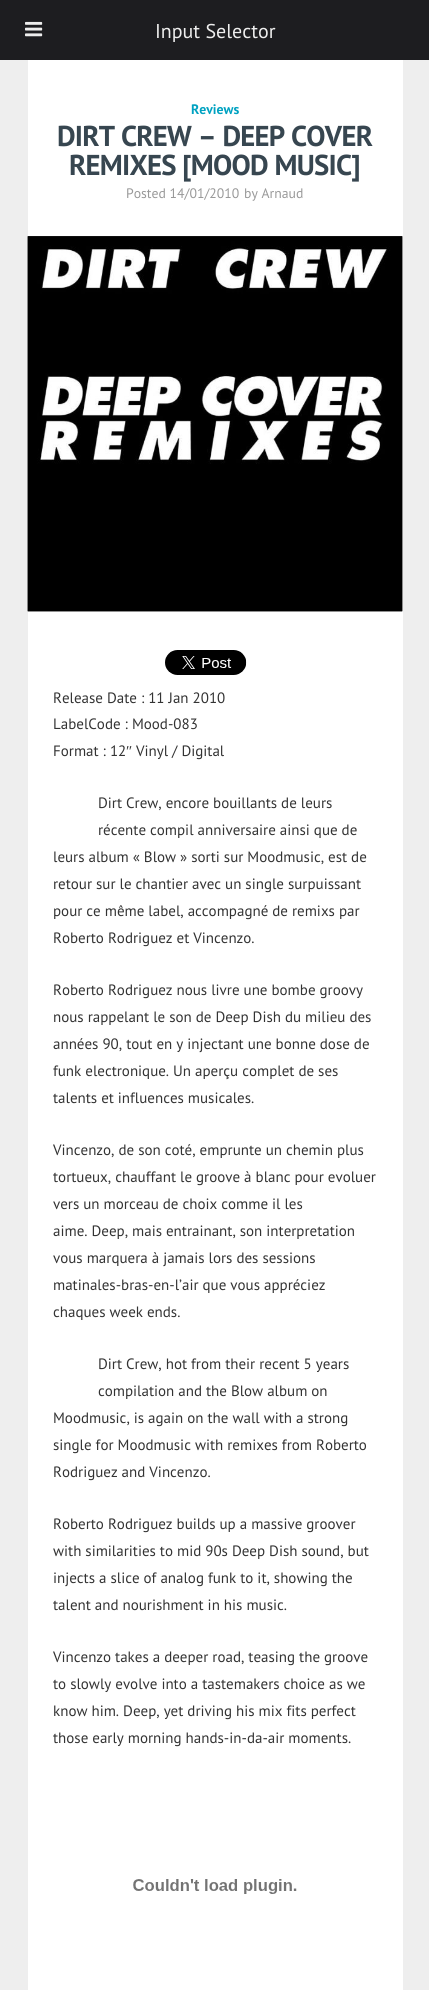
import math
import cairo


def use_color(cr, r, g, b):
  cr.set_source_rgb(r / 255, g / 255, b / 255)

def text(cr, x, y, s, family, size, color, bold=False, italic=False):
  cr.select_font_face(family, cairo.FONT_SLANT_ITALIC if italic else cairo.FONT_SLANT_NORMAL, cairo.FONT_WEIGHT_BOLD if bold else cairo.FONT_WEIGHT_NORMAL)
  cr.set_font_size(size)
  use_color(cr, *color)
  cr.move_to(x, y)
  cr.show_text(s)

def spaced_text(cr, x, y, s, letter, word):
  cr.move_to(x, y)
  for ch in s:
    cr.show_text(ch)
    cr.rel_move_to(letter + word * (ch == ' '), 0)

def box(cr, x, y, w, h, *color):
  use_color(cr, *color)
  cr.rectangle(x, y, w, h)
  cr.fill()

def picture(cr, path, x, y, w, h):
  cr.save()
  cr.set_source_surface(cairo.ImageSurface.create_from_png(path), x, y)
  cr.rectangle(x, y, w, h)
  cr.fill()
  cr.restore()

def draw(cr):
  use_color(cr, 238, 238, 238)
  cr.paint()
  box(cr, 0, 0, 429, 60, 29, 29, 32)
  picture(cr, "img_01.png", 25, 21, 18, 16)
  box(cr, 28, 60, 375, 1930, 255, 255, 255)
  picture(cr, "img_02.png", 27, 236, 376, 376)
  picture(cr, "img_03.png", 27, 236, 376, 376)
  picture(cr, "img_04.png", 165, 650, 82, 25)
  picture(cr, "img_05.png", 133, 1879, 164, 15)
  text(cr, 155, 38, "Input Selector", "PT Sans", 20, (238, 238, 238))
  text(cr, 191, 114, "Reviews", "PT Sans", 13.75, (0, 162, 193), bold=True)
  cr.set_font_size(28.75)
  use_color(cr, 55, 70, 80)
  spaced_text(cr, 57, 146, "DIRT CREW – DEEP COVER", -0.75, 0)
  spaced_text(cr, 69, 175, "REMIXES [MOOD MUSIC]", -0.75, 0)
  text(cr, 126, 198, "Posted 14/01/2010", "PT Sans", 13.75, (153, 153, 153))
  text(cr, 244, 198, "by Arnaud", "PT Sans", 13.75, (153, 153, 153))
  text(cr, 53, 703, "Release Date : 11 Jan 2010", "PT Sans", 15, (51, 51, 51))
  text(cr, 53, 729, "LabelCode : Mood-083", "PT Sans", 15, (51, 51, 51))
  text(cr, 53, 756, "Format : 12", "PT Sans", 15, (51, 51, 51))
  text(cr, 126, 756, "″", "Liberation Serif", 15, (51, 51, 51))
  text(cr, 136, 756, "Vinyl / Digital", "PT Sans", 15, (51, 51, 51))
  text(cr, 98, 808, "Dirt Crew, encore bouillants de leurs", "PT Sans", 15, (51, 51, 51))
  text(cr, 98, 835, "récente compil anniversaire ainsi que de", "PT Sans", 15, (51, 51, 51))
  text(cr, 53, 862, "leurs album « Blow » sorti sur Moodmusic, est de", "PT Sans", 15, (51, 51, 51))
  text(cr, 53, 889, "retour sur le chantier avec un single surpuissant", "PT Sans", 15, (51, 51, 51))
  text(cr, 53, 916, "pour ce même label, accompagné de remixs par", "PT Sans", 15, (51, 51, 51))
  text(cr, 53, 943, "Roberto Rodriguez et Vincenzo.", "PT Sans", 15, (51, 51, 51))
  text(cr, 53, 995, "Roberto Rodriguez nous livre une bombe groovy", "PT Sans", 15, (51, 51, 51))
  text(cr, 53, 1022, "nous rappelant le son de Deep Dish du milieu des", "PT Sans", 15, (51, 51, 51))
  text(cr, 53, 1049, "années 90, tout en y injectant une bonne dose de", "PT Sans", 15, (51, 51, 51))
  text(cr, 53, 1076, "funk electronique. Un aperçu complet de ses", "PT Sans", 15, (51, 51, 51))
  text(cr, 53, 1103, "talents et influences musicales.", "PT Sans", 15, (51, 51, 51))
  text(cr, 53, 1155, "Vincenzo, de son coté, emprunte un chemin plus", "PT Sans", 15, (51, 51, 51))
  text(cr, 53, 1182, "tortueux, chauffant le groove à blanc pour evoluer", "PT Sans", 15, (51, 51, 51))
  text(cr, 53, 1209, "vers un morceau de choix comme il les", "PT Sans", 15, (51, 51, 51))
  text(cr, 53, 1236, "aime. Deep, mais entrainant, son interpretation", "PT Sans", 15, (51, 51, 51))
  text(cr, 53, 1263, "vous marquera à jamais lors des sessions", "PT Sans", 15, (51, 51, 51))
  text(cr, 53, 1290, "matinales-bras-en-l’air que vous appréciez", "PT Sans", 15, (51, 51, 51))
  text(cr, 53, 1317, "chaques week ends.", "PT Sans", 15, (51, 51, 51))
  text(cr, 98, 1369, "Dirt Crew, hot from their recent 5 years", "PT Sans", 15, (51, 51, 51))
  text(cr, 98, 1396, "compilation and the Blow album on", "PT Sans", 15, (51, 51, 51))
  text(cr, 53, 1423, "Moodmusic, is again on the wall with a strong", "PT Sans", 15, (51, 51, 51))
  text(cr, 53, 1450, "single for Moodmusic with remixes from Roberto", "PT Sans", 15, (51, 51, 51))
  text(cr, 53, 1477, "Rodriguez and Vincenzo.", "PT Sans", 15, (51, 51, 51))
  text(cr, 53, 1529, "Roberto Rodriguez builds up a massive groover", "PT Sans", 15, (51, 51, 51))
  text(cr, 53, 1556, "with similarities to mid 90s Deep Dish sound, but", "PT Sans", 15, (51, 51, 51))
  text(cr, 53, 1583, "injects a slice of analog funk to it, showing the", "PT Sans", 15, (51, 51, 51))
  text(cr, 53, 1610, "talent and nourishment in his music.", "PT Sans", 15, (51, 51, 51))
  text(cr, 53, 1662, "Vincenzo takes a deeper road, teasing the groove", "PT Sans", 15, (51, 51, 51))
  text(cr, 53, 1689, "to slowly evolve into a tastemakers choice as we", "PT Sans", 15, (51, 51, 51))
  text(cr, 53, 1716, "know him. Deep, yet driving his mix fits perfect", "PT Sans", 15, (51, 51, 51))
  text(cr, 53, 1743, "those early morning hands-in-da-air moments.", "PT Sans", 15, (51, 51, 51))


surface = cairo.ImageSurface(cairo.FORMAT_RGB24, 429, 1990)
cr = cairo.Context(surface)
options = cairo.FontOptions()
options.set_hint_metrics(cairo.HINT_METRICS_OFF)
options.set_hint_style(cairo.HINT_STYLE_NONE)
cr.set_font_options(options)
cr.set_miter_limit(4)
draw(cr)
surface.write_to_png("out.png")
